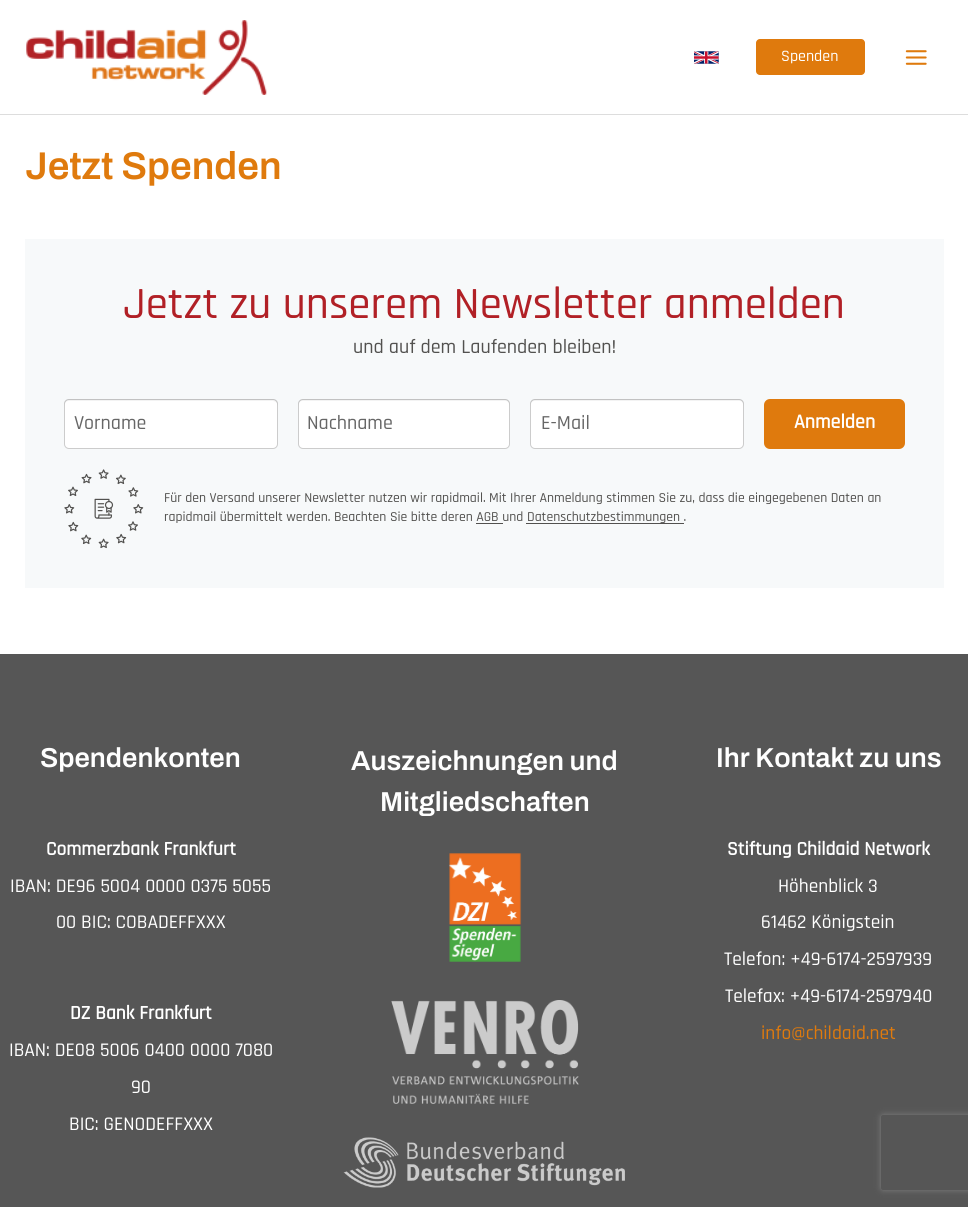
import math
import cairo


def use_color(cr, r, g, b):
  cr.set_source_rgb(r / 255, g / 255, b / 255)

def text(cr, x, y, s, family, size, color, bold=False, italic=False):
  cr.select_font_face(family, cairo.FONT_SLANT_ITALIC if italic else cairo.FONT_SLANT_NORMAL, cairo.FONT_WEIGHT_BOLD if bold else cairo.FONT_WEIGHT_NORMAL)
  cr.set_font_size(size)
  use_color(cr, *color)
  cr.move_to(x, y)
  cr.show_text(s)

def box(cr, x, y, w, h, *color):
  use_color(cr, *color)
  cr.rectangle(x, y, w, h)
  cr.fill()

def round_rect(cr, x, y, w, h, r):
  cr.new_sub_path()
  for i, (u, v) in enumerate([(x + w - r, y + h - r), (x + r, y + h - r), (x + r, y + r), (x + w - r, y + r)]):
    cr.arc(u, v, r, i * math.pi / 2, (i + 1) * math.pi / 2)
  cr.close_path()

def shadow(cr, x, y, w, h, r, blur, alpha):
  cr.push_group_with_content(cairo.CONTENT_ALPHA)
  cr.set_operator(cairo.OPERATOR_SOURCE)
  for i in range(15, -16, -2):
    e = blur * i / 6
    if min(w, h) + 2 * e > 0:
      cr.set_source_rgba(0, 0, 0, alpha * math.erfc((i - 1) / 8.5) / 2)
      round_rect(cr, x - e, y - e, w + 2 * e, h + 2 * e, max(0, min(r + e + blur * .6, min(w, h) / 2 + e)))
      cr.fill()
  cr.mask(cr.pop_group())

def picture(cr, path, x, y, w, h):
  cr.save()
  cr.set_source_surface(cairo.ImageSurface.create_from_png(path), x, y)
  cr.rectangle(x, y, w, h)
  cr.fill()
  cr.restore()

def draw(cr):
  use_color(cr, 255, 255, 255)
  cr.paint()
  box(cr, 0, 114, 968, 1, 221, 221, 221)
  picture(cr, "img_01.png", 26, 20, 241, 75)
  picture(cr, "img_02.png", 694, 51, 25, 13)
  use_color(cr, 223, 122, 13)
  round_rect(cr, 756, 39, 109, 36, 4)
  cr.fill()
  picture(cr, "img_03.png", 905, 50, 22, 15)
  box(cr, 25, 239, 919, 349, 247, 249, 250)
  use_color(cr, 255, 255, 255)
  round_rect(cr, 64, 399, 214, 50, 5)
  cr.fill()
  round_rect(cr, 64.5, 399.5, 213, 49, 4.5)
  cr.set_source_rgba(0, 0, 0, 0.2)
  cr.set_line_width(1)
  cr.stroke()
  cr.set_source_rgba(0, 0, 0, 0.05)
  cr.new_path()
  cr.move_to(69, 401)
  cr.line_to(272, 401)
  cr.curve_to(275, 401, 278, 403, 278, 406)
  cr.line_to(278, 404)
  cr.curve_to(278, 401, 276, 399, 273, 399)
  cr.line_to(69, 399)
  cr.curve_to(66, 399, 64, 401, 64, 404)
  cr.line_to(64, 406)
  cr.curve_to(64, 403, 66, 401, 69, 401)
  cr.close_path()
  cr.fill()
  use_color(cr, 255, 255, 255)
  round_rect(cr, 298, 399, 212, 50, 5)
  cr.fill()
  round_rect(cr, 298.5, 399.5, 211, 49, 4.5)
  cr.set_source_rgba(0, 0, 0, 0.2)
  cr.stroke()
  cr.set_source_rgba(0, 0, 0, 0.05)
  cr.new_path()
  cr.move_to(302, 401)
  cr.line_to(505, 401)
  cr.curve_to(508, 401, 510, 403, 510, 406)
  cr.line_to(510, 404)
  cr.curve_to(510, 401, 508, 399, 505, 399)
  cr.line_to(303, 399)
  cr.curve_to(300, 399, 298, 401, 298, 404)
  cr.line_to(298, 406)
  cr.curve_to(298, 403, 300, 401, 302, 401)
  cr.close_path()
  cr.fill()
  use_color(cr, 255, 255, 255)
  round_rect(cr, 530, 399, 214, 50, 5)
  cr.fill()
  round_rect(cr, 530.5, 399.5, 213, 49, 4.5)
  cr.set_source_rgba(0, 0, 0, 0.2)
  cr.stroke()
  cr.set_source_rgba(0, 0, 0, 0.05)
  cr.new_path()
  cr.move_to(535, 401)
  cr.line_to(739, 401)
  cr.curve_to(742, 401, 744, 403, 744, 406)
  cr.line_to(744, 404)
  cr.curve_to(744, 401, 742, 399, 739, 399)
  cr.line_to(535, 399)
  cr.curve_to(532, 399, 530, 401, 530, 404)
  cr.line_to(530, 406)
  cr.curve_to(530, 403, 532, 401, 535, 401)
  cr.close_path()
  cr.fill()
  use_color(cr, 223, 122, 13)
  round_rect(cr, 764, 399, 141, 50, 6)
  cr.fill()
  picture(cr, "img_04.png", 64, 469, 80, 80)
  box(cr, 526, 523, 158, 1, 82, 81, 79)
  box(cr, 476, 523, 27, 1, 82, 81, 79)
  box(cr, 0, 654, 968, 553, 86, 86, 86)
  picture(cr, "img_05.png", 449, 853, 73, 109)
  picture(cr, "img_06.png", 391, 1000, 188, 104)
  picture(cr, "img_07.png", 343, 1137, 282, 51)
  cr.save()
  cr.set_fill_rule(cairo.FILL_RULE_EVEN_ODD)
  cr.new_path()
  cr.move_to(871, 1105)
  cr.line_to(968, 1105)
  cr.line_to(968, 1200)
  cr.line_to(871, 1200)
  cr.close_path()
  cr.move_to(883.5, 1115)
  cr.line_to(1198.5, 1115)
  cr.curve_to(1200, 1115, 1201, 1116, 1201, 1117.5)
  cr.line_to(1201, 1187.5)
  cr.curve_to(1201, 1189, 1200, 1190, 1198.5, 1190)
  cr.line_to(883.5, 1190)
  cr.curve_to(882, 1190, 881, 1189, 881, 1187.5)
  cr.line_to(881, 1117.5)
  cr.curve_to(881, 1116, 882, 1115, 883.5, 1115)
  cr.close_path()
  cr.clip()
  use_color(cr, 128, 128, 128)
  shadow(cr, 881, 1115, 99, 75, 2.5, 3, 1)
  cr.restore()
  text(cr, 781, 61, "Spenden", "Rajdhani Medium", 16, (255, 255, 255))
  text(cr, 25, 179, "Jetzt Spenden", "Archivo SemiBold", 38.75, (223, 122, 13))
  text(cr, 123, 318, "Jetzt zu unserem Newsletter anmelden", "Rajdhani Medium", 45, (177, 32, 38))
  text(cr, 353, 353, "und auf dem Laufenden bleiben!", "Rajdhani Medium", 20, (82, 81, 79))
  text(cr, 74, 429, "Vorname", "Rajdhani Medium", 20, (102, 102, 102))
  text(cr, 307, 429, "Nachname", "Rajdhani Medium", 20, (102, 102, 102))
  text(cr, 541, 429, "E-Mail", "Rajdhani Medium", 20, (102, 102, 102))
  text(cr, 794, 428, "Anmelden", "Rajdhani", 20, (255, 255, 255), bold=True)
  text(cr, 164, 502, "Für den Versand unserer Newsletter nutzen wir rapidmail. Mit Ihrer Anmeldung stimmen Sie zu, dass die eingegebenen Daten an", "Rajdhani Medium", 13.75, (82, 81, 79))
  text(cr, 164, 521, "rapidmail übermittelt werden. Beachten Sie bitte deren AGB und", "Rajdhani Medium", 13.75, (82, 81, 79))
  text(cr, 527, 521, "Datenschutzbestimmungen .", "Rajdhani Medium", 13.75, (82, 81, 79))
  text(cr, 40, 767, "Spendenkonten", "Archivo SemiBold", 27.4, (255, 255, 255))
  text(cr, 46, 855, "Commerzbank Frankfurt", "Rajdhani", 19.4, (255, 255, 255), bold=True)
  text(cr, 10, 892, "IBAN: DE96 5004 0000 0375 5055", "Rajdhani Medium", 19.4, (255, 255, 255))
  text(cr, 56, 928, "00 BIC: COBADEFFXXX", "Rajdhani Medium", 19.4, (255, 255, 255))
  text(cr, 70, 1019, "DZ Bank Frankfurt", "Rajdhani", 19.4, (255, 255, 255), bold=True)
  text(cr, 9, 1056, "IBAN: DE08 5006 0400 0000 7080", "Rajdhani Medium", 19.4, (255, 255, 255))
  text(cr, 131, 1093, "90", "Rajdhani Medium", 19.4, (255, 255, 255))
  text(cr, 69, 1130, "BIC: GENODEFFXXX", "Rajdhani Medium", 19.4, (255, 255, 255))
  text(cr, 351, 770, "Auszeichnungen und", "Archivo SemiBold", 27.4, (255, 255, 255))
  text(cr, 380, 811, "Mitgliedschaften", "Archivo SemiBold", 27.4, (255, 255, 255))
  text(cr, 716, 767, "Ihr Kontakt zu uns", "Archivo SemiBold", 27.4, (255, 255, 255))
  text(cr, 727, 855, "Stiftung Childaid Network", "Rajdhani", 19.4, (255, 255, 255), bold=True)
  text(cr, 778, 892, "Höhenblick 3", "Rajdhani Medium", 19.4, (255, 255, 255))
  text(cr, 761, 928, "61462 Königstein", "Rajdhani Medium", 19.4, (255, 255, 255))
  text(cr, 724, 965, "Telefon: +49-6174-2597939", "Rajdhani Medium", 19.4, (255, 255, 255))
  text(cr, 725, 1002, "Telefax: +49-6174-2597940", "Rajdhani Medium", 19.4, (255, 255, 255))
  text(cr, 761, 1039, "info@childaid.net", "Rajdhani Medium", 19.4, (223, 122, 13))


surface = cairo.ImageSurface(cairo.FORMAT_RGB24, 968, 1207)
cr = cairo.Context(surface)
options = cairo.FontOptions()
options.set_hint_metrics(cairo.HINT_METRICS_OFF)
options.set_hint_style(cairo.HINT_STYLE_NONE)
cr.set_font_options(options)
cr.set_miter_limit(4)
draw(cr)
surface.write_to_png("out.png")
